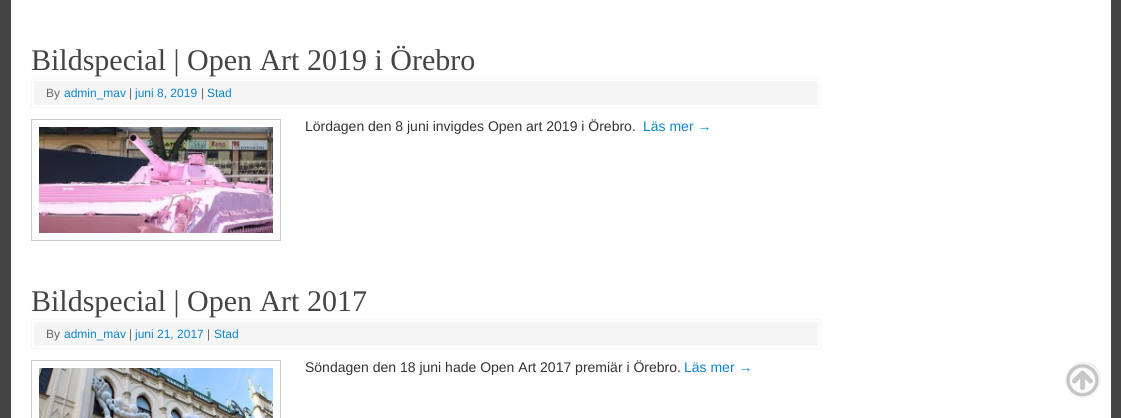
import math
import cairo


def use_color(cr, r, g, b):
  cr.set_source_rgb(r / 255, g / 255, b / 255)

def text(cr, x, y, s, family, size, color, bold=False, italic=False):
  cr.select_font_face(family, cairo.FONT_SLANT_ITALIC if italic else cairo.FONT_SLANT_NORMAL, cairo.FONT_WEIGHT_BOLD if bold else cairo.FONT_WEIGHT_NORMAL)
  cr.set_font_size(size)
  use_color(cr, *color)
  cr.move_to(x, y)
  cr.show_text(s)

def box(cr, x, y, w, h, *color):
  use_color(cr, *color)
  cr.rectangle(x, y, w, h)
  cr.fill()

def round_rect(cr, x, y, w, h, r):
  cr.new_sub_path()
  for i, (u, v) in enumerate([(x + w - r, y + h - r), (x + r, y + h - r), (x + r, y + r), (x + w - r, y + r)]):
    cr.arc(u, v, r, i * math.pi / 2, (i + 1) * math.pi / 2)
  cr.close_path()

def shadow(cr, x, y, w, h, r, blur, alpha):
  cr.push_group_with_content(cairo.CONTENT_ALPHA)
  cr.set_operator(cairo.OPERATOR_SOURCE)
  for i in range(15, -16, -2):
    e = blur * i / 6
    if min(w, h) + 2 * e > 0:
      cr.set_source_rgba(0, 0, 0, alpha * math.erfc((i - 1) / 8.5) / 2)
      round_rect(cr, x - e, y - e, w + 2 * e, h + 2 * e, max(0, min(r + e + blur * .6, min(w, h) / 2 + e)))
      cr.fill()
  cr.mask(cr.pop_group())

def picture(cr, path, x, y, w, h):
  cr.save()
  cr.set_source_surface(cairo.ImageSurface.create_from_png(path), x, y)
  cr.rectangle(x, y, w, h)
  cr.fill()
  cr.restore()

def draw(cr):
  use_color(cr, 68, 68, 68)
  cr.paint()
  box(cr, 11, 0, 1100, 418, 255, 255, 255)
  use_color(cr, 221, 221, 221)
  shadow(cr, 32, 79, 788, 28, 0, 0.5, 1)
  use_color(cr, 245, 245, 245)
  cr.rectangle(33, 80, 786, 26)
  cr.fill_preserve()
  use_color(cr, 255, 255, 255)
  cr.stroke()
  cr.rectangle(31.5, 119.5, 249, 121)
  use_color(cr, 204, 204, 204)
  cr.set_line_width(1)
  cr.stroke()
  picture(cr, "img_01.png", 39, 127, 234, 106)
  use_color(cr, 221, 221, 221)
  shadow(cr, 32, 320, 788, 28, 0, 0.5, 1)
  use_color(cr, 245, 245, 245)
  cr.rectangle(33, 321, 786, 26)
  cr.fill_preserve()
  use_color(cr, 255, 255, 255)
  cr.set_line_width(2)
  cr.stroke()
  cr.rectangle(31.5, 360.5, 249, 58)
  use_color(cr, 204, 204, 204)
  cr.set_line_width(1)
  cr.stroke()
  picture(cr, "img_02.png", 39, 368, 234, 50)
  picture(cr, "img_03.png", 1065, 361, 36, 37)
  text(cr, 31, 70, "Bildspecial | Open Art 2019 i Örebro", "Liberation Serif", 30, (68, 68, 68))
  text(cr, 46, 97, "By", "Liberation Sans", 12, (102, 102, 102))
  text(cr, 64, 97, "admin_mav", "Liberation Sans", 12, (13, 133, 204))
  text(cr, 129, 97, "|", "Liberation Sans", 12, (102, 102, 102))
  text(cr, 135, 97, "juni 8, 2019", "Liberation Sans", 12, (13, 133, 204))
  text(cr, 201, 97, "|", "Liberation Sans", 12, (102, 102, 102))
  text(cr, 207, 97, "Stad", "Liberation Sans", 12, (13, 133, 204))
  text(cr, 305, 131, "Lördagen den 8 juni invigdes Open art 2019 i Örebro.", "Liberation Sans", 14, (51, 51, 51))
  text(cr, 643, 131, "Läs mer →", "Liberation Sans", 14, (13, 133, 204))
  text(cr, 31, 311, "Bildspecial | Open Art 2017", "Liberation Serif", 30, (68, 68, 68))
  text(cr, 46, 338, "By", "Liberation Sans", 12, (102, 102, 102))
  text(cr, 64, 338, "admin_mav", "Liberation Sans", 12, (13, 133, 204))
  text(cr, 129, 338, "|", "Liberation Sans", 12, (102, 102, 102))
  text(cr, 135, 338, "juni 21, 2017", "Liberation Sans", 12, (13, 133, 204))
  text(cr, 207, 338, "|", "Liberation Sans", 12, (102, 102, 102))
  text(cr, 214, 338, "Stad", "Liberation Sans", 12, (13, 133, 204))
  text(cr, 305, 372, "Söndagen den 18 juni hade Open Art 2017 premiär i Örebro.", "Liberation Sans", 14, (51, 51, 51))
  text(cr, 684, 372, "Läs mer →", "Liberation Sans", 14, (13, 133, 204))


surface = cairo.ImageSurface(cairo.FORMAT_RGB24, 1121, 418)
cr = cairo.Context(surface)
options = cairo.FontOptions()
options.set_hint_metrics(cairo.HINT_METRICS_OFF)
options.set_hint_style(cairo.HINT_STYLE_NONE)
cr.set_font_options(options)
cr.set_miter_limit(4)
draw(cr)
surface.write_to_png("out.png")
